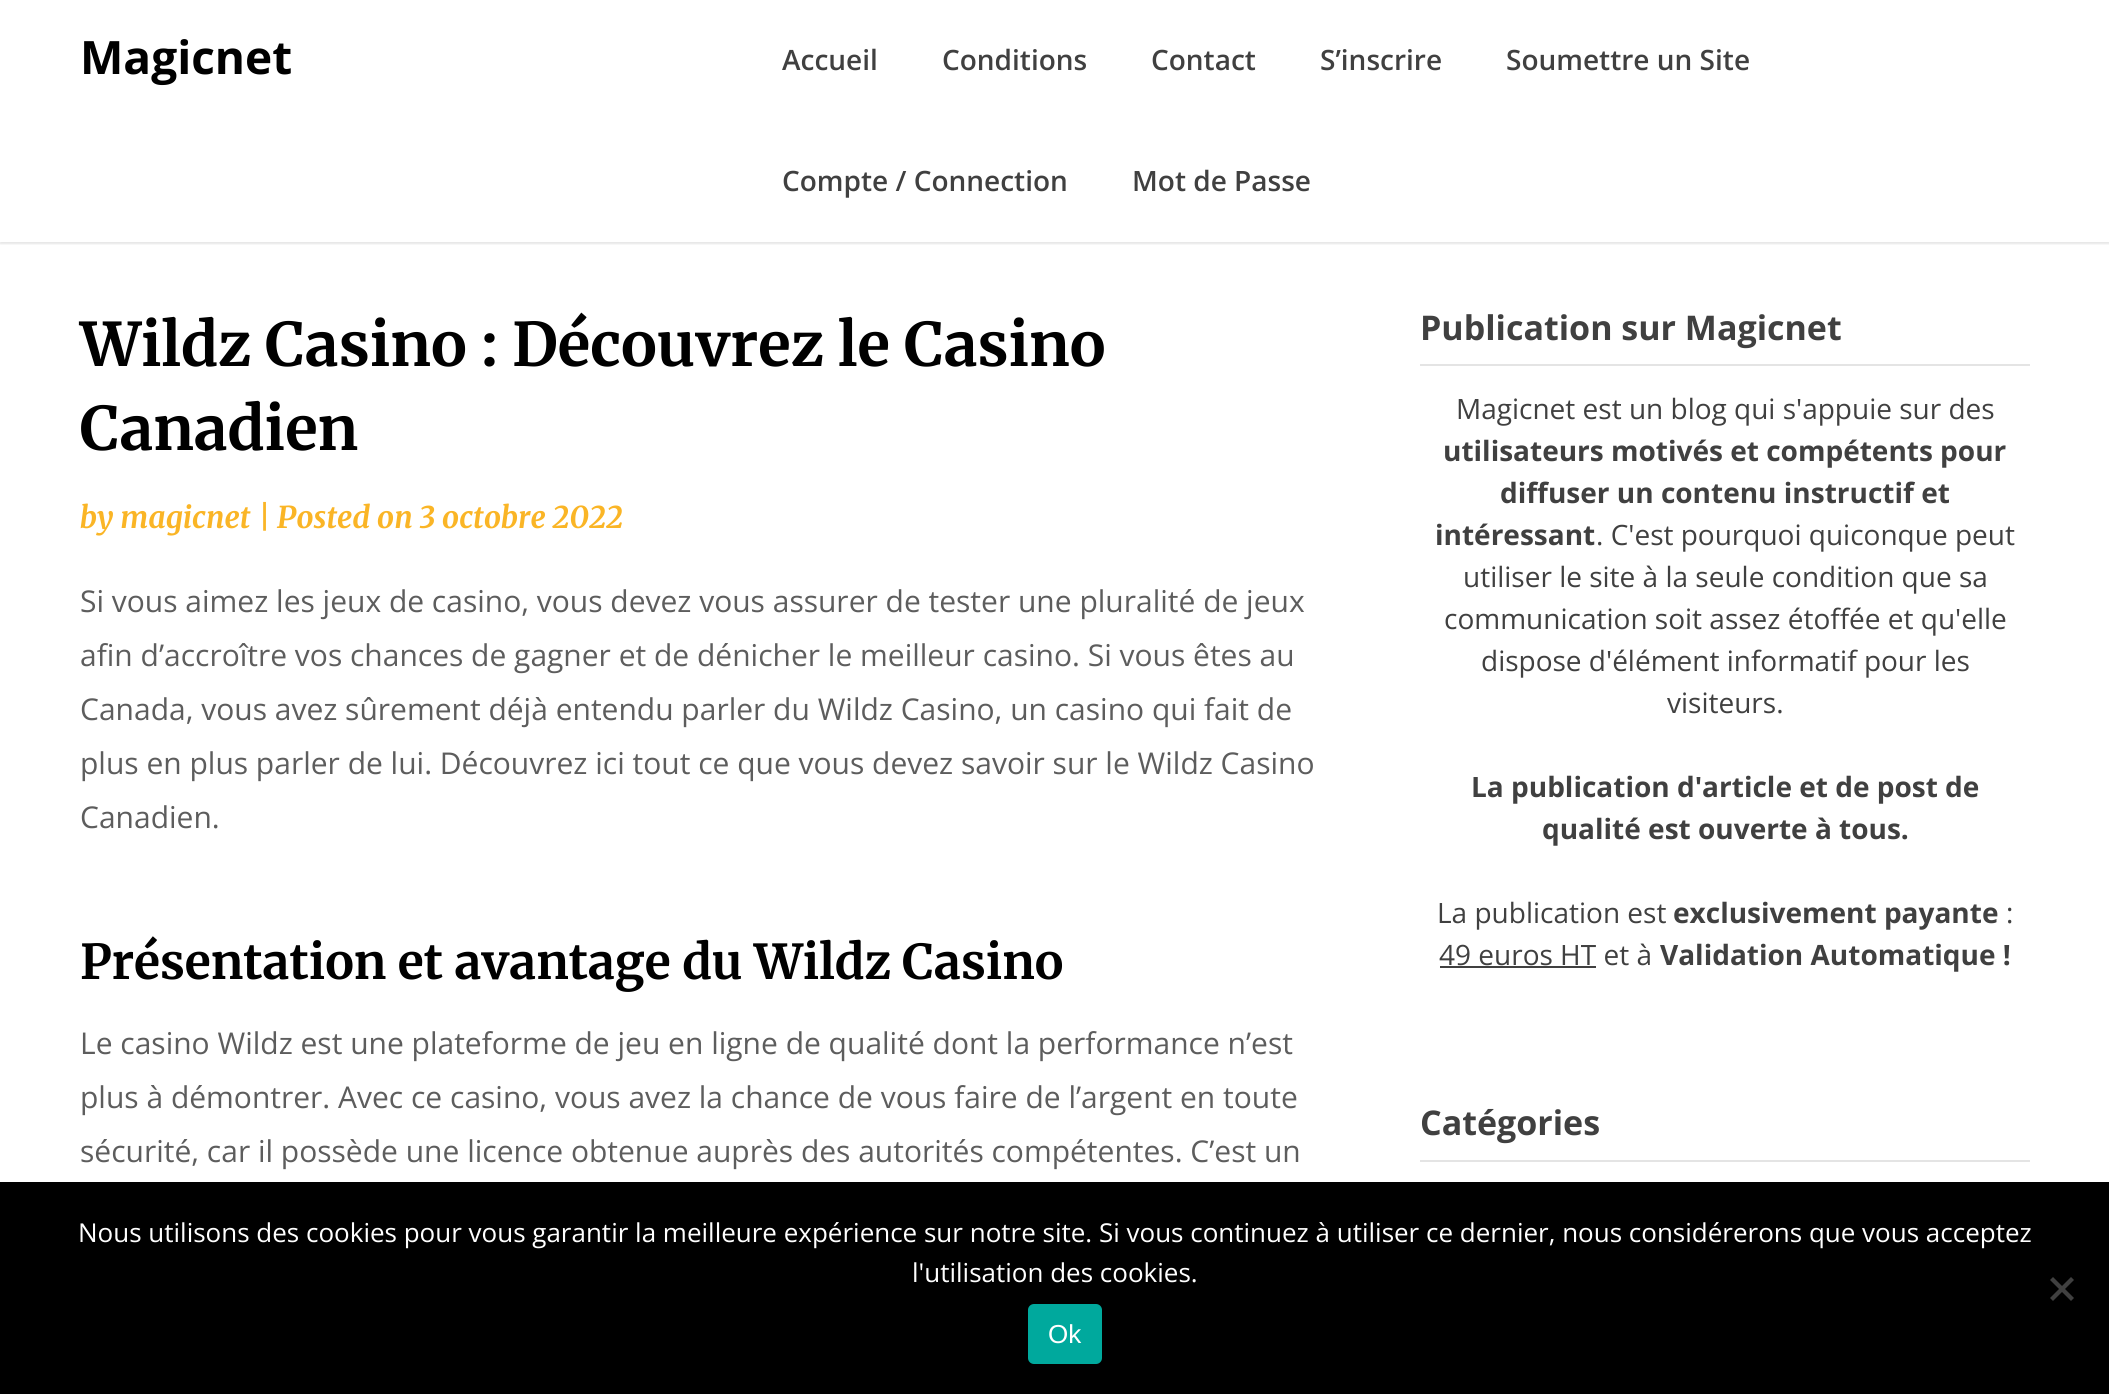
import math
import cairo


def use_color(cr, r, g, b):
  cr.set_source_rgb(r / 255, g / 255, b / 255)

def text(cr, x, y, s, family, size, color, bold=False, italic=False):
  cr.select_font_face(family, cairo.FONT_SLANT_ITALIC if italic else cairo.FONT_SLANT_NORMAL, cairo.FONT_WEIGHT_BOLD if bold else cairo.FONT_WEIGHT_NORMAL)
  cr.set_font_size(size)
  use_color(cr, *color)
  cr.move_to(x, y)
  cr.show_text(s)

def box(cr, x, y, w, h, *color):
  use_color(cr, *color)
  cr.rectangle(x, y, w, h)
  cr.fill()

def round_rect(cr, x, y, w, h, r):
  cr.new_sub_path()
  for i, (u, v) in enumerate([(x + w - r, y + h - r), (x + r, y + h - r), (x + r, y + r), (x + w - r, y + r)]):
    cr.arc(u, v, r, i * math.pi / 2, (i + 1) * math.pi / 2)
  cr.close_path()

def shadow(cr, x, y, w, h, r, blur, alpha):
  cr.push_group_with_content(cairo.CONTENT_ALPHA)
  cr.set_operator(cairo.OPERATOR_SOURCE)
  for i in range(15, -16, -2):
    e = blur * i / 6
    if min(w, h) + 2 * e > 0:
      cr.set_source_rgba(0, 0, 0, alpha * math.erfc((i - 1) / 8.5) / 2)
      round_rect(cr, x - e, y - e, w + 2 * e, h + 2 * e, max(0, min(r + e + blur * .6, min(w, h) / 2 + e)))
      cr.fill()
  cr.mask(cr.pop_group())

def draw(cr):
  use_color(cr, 255, 255, 255)
  cr.paint()
  cr.save()
  cr.rectangle(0, 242, 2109, 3)
  cr.clip()
  use_color(cr, 0, 0, 0)
  shadow(cr, 0, 2, 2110, 242, 0, 1, 0.1)
  cr.restore()
  box(cr, 1420, 364, 610, 2, 228, 228, 228)
  box(cr, 1440, 966, 156, 2, 64, 64, 64)
  box(cr, 1420, 1160, 610, 2, 228, 228, 228)
  box(cr, 0, 1182, 2109, 212, 0, 0, 0)
  use_color(cr, 64, 64, 64)
  cr.new_path()
  cr.move_to(2071, 1277)
  cr.line_to(2074, 1280)
  cr.line_to(2053, 1301)
  cr.line_to(2050, 1298)
  cr.close_path()
  cr.fill()
  cr.new_path()
  cr.move_to(2050, 1280)
  cr.line_to(2053, 1277)
  cr.line_to(2074, 1298)
  cr.line_to(2071, 1301)
  cr.close_path()
  cr.fill()
  use_color(cr, 0, 169, 157)
  round_rect(cr, 1028, 1304, 74, 60, 6)
  cr.fill()
  text(cr, 80, 74, "Magicnet", "Open Sans", 46, (0, 0, 0), bold=True)
  text(cr, 782, 70, "Accueil", "Open Sans SemiBold", 28, (64, 64, 64))
  text(cr, 942, 70, "Conditions", "Open Sans SemiBold", 28, (64, 64, 64))
  text(cr, 1151, 70, "Contact", "Open Sans SemiBold", 28, (64, 64, 64))
  text(cr, 1320, 70, "S’inscrire", "Open Sans SemiBold", 28, (64, 64, 64))
  text(cr, 1506, 70, "Soumettre un Site", "Open Sans SemiBold", 28, (64, 64, 64))
  text(cr, 782, 191, "Compte / Connection", "Open Sans SemiBold", 28, (64, 64, 64))
  text(cr, 1132, 191, "Mot de Passe", "Open Sans SemiBold", 28, (64, 64, 64))
  text(cr, 80, 366, "Wildz Casino : Découvrez le Casino", "Merriweather", 60, (0, 0, 0), bold=True)
  text(cr, 80, 450, "Canadien", "Merriweather", 60, (0, 0, 0), bold=True)
  text(cr, 80, 528, "by magicnet", "Merriweather Light", 30, (250, 181, 38), italic=True)
  text(cr, 258, 528, "| Posted on 3 octobre 2022", "Merriweather Light", 30, (250, 181, 38), italic=True)
  text(cr, 80, 612, "Si vous aimez les jeux de casino, vous devez vous assurer de tester une pluralité de jeux", "Open Sans", 30, (93, 93, 93))
  text(cr, 80, 666, "afin d’accroître vos chances de gagner et de dénicher le meilleur casino. Si vous êtes au", "Open Sans", 30, (93, 93, 93))
  text(cr, 80, 720, "Canada, vous avez sûrement déjà entendu parler du Wildz Casino, un casino qui fait de", "Open Sans", 30, (93, 93, 93))
  text(cr, 80, 774, "plus en plus parler de lui. Découvrez ici tout ce que vous devez savoir sur le Wildz Casino", "Open Sans", 30, (93, 93, 93))
  text(cr, 80, 828, "Canadien.", "Open Sans", 30, (93, 93, 93))
  text(cr, 80, 979, "Présentation et avantage du Wildz Casino", "Merriweather", 48, (0, 0, 0), bold=True)
  text(cr, 80, 1054, "Le casino Wildz est une plateforme de jeu en ligne de qualité dont la performance n’est", "Open Sans", 30, (93, 93, 93))
  text(cr, 80, 1108, "plus à démontrer. Avec ce casino, vous avez la chance de vous faire de l’argent en toute", "Open Sans", 30, (93, 93, 93))
  text(cr, 80, 1162, "sécurité, car il possède une licence obtenue auprès des autorités compétentes. C’est un", "Open Sans", 30, (93, 93, 93))
  text(cr, 1420, 340, "Publication sur Magicnet", "Open Sans", 34, (64, 64, 64), bold=True)
  text(cr, 1456, 419, "Magicnet est un blog qui s'appuie sur des", "Open Sans", 28, (64, 64, 64))
  text(cr, 1443, 461, "utilisateurs motivés et compétents pour", "Open Sans", 28, (64, 64, 64), bold=True)
  text(cr, 1500, 503, "diffuser un contenu instructif et", "Open Sans", 28, (64, 64, 64), bold=True)
  text(cr, 1435, 545, "intéressant", "Open Sans", 28, (64, 64, 64), bold=True)
  text(cr, 1596, 545, ". C'est pourquoi quiconque peut", "Open Sans", 28, (64, 64, 64))
  text(cr, 1463, 587, "utiliser le site à la seule condition que sa", "Open Sans", 28, (64, 64, 64))
  text(cr, 1444, 629, "communication soit assez étoffée et qu'elle", "Open Sans", 28, (64, 64, 64))
  text(cr, 1481, 671, "dispose d'élément informatif pour les", "Open Sans", 28, (64, 64, 64))
  text(cr, 1667, 713, "visiteurs.", "Open Sans", 28, (64, 64, 64))
  text(cr, 1471, 797, "La publication d'article et de post de", "Open Sans", 28, (64, 64, 64), bold=True)
  text(cr, 1542, 839, "qualité est ouverte à tous.", "Open Sans", 28, (64, 64, 64), bold=True)
  text(cr, 1437, 923, "La publication est", "Open Sans", 28, (64, 64, 64))
  text(cr, 1673, 923, "exclusivement payante", "Open Sans", 28, (64, 64, 64), bold=True)
  text(cr, 2006, 923, ":", "Open Sans", 28, (64, 64, 64))
  text(cr, 1439, 965, "49 euros HT et à", "Open Sans", 28, (64, 64, 64))
  text(cr, 1660, 965, "Validation Automatique !", "Open Sans", 28, (64, 64, 64), bold=True)
  text(cr, 1420, 1135, "Catégories", "Open Sans", 34, (64, 64, 64), bold=True)
  text(cr, 78, 1242, "Nous utilisons des cookies pour vous garantir la meilleure expérience sur notre site. Si vous continuez à utiliser ce dernier, nous considérerons que vous acceptez", "Open Sans", 26, (255, 255, 255))
  text(cr, 912, 1282, "l'utilisation des cookies.", "Open Sans", 26, (255, 255, 255))
  text(cr, 1048, 1343, "Ok", "Liberation Sans", 26, (255, 255, 255))


surface = cairo.ImageSurface(cairo.FORMAT_RGB24, 2109, 1394)
cr = cairo.Context(surface)
options = cairo.FontOptions()
options.set_hint_metrics(cairo.HINT_METRICS_OFF)
options.set_hint_style(cairo.HINT_STYLE_NONE)
cr.set_font_options(options)
cr.set_miter_limit(4)
draw(cr)
surface.write_to_png("out.png")
